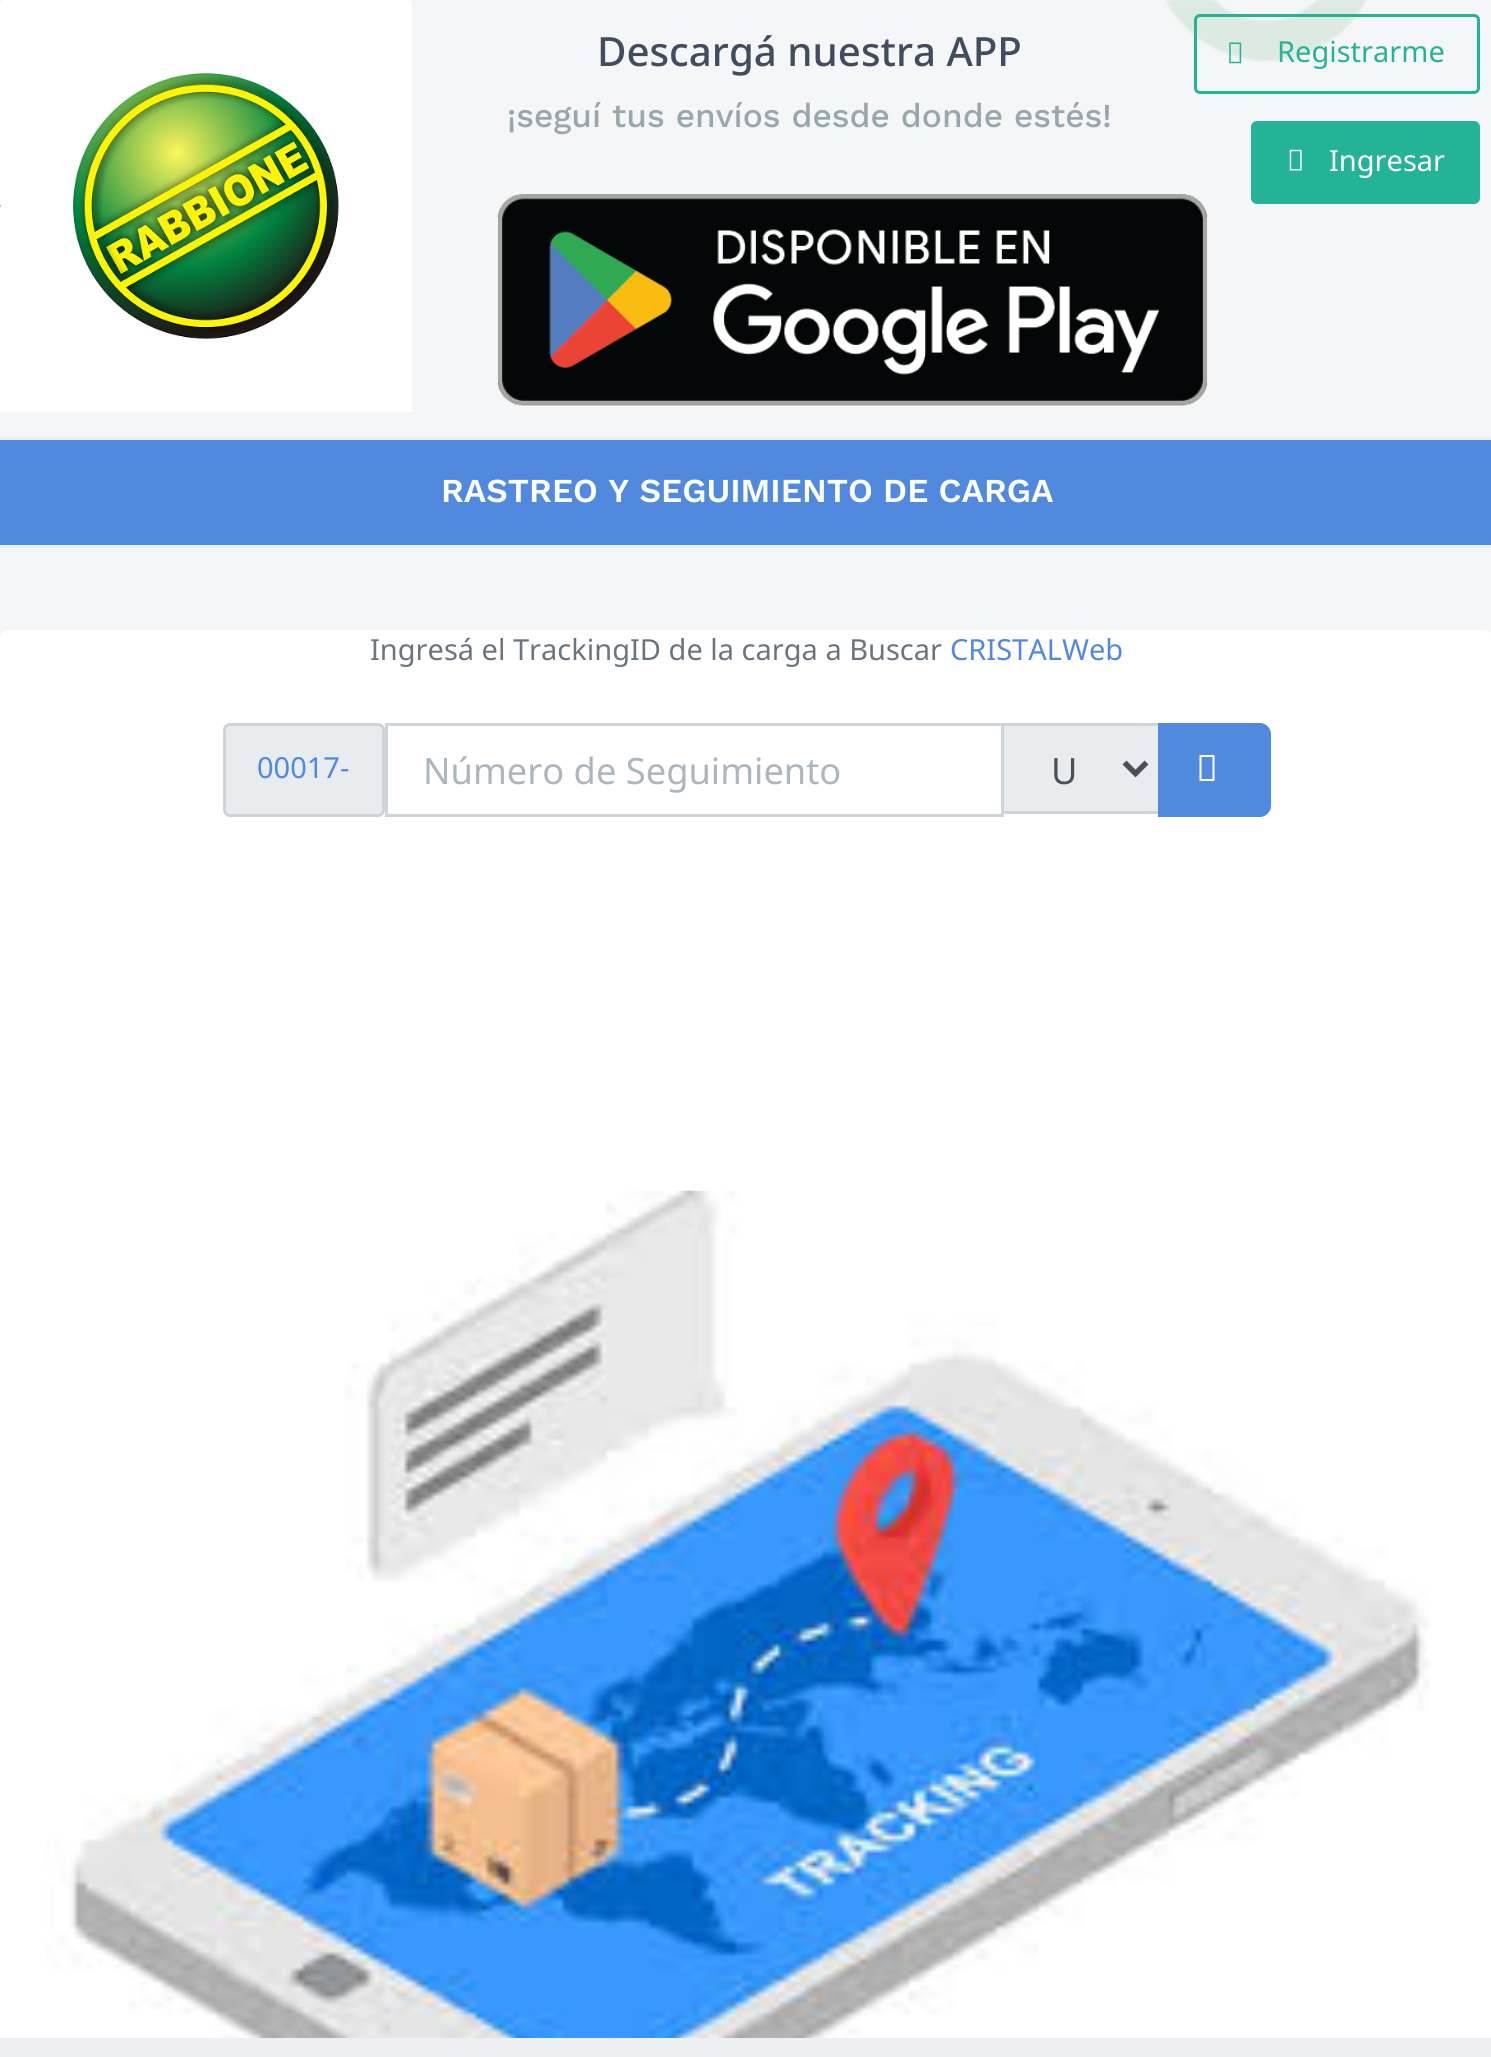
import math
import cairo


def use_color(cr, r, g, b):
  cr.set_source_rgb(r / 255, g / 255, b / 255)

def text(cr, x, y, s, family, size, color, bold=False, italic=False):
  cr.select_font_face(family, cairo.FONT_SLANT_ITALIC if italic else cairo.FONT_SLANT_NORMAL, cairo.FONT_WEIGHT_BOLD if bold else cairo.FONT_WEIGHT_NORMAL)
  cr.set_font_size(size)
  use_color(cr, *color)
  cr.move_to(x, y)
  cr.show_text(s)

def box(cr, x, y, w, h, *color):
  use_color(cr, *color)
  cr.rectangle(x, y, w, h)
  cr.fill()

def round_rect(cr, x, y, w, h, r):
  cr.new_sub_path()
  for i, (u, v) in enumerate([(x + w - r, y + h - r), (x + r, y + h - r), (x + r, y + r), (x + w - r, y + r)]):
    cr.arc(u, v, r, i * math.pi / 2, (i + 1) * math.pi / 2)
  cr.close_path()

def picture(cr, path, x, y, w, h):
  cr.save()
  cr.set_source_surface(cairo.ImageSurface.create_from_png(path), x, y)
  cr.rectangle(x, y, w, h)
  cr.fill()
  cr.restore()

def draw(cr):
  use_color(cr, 245, 246, 248)
  cr.paint()
  picture(cr, "img_01.png", 1165, 0, 202, 62)
  picture(cr, "img_02.png", 0, 0, 412, 412)
  picture(cr, "img_03.png", 497, 194, 711, 212)
  round_rect(cr, 1195.5, 15.5, 283, 77, 4.5)
  use_color(cr, 35, 179, 151)
  cr.set_line_width(3)
  cr.stroke()
  picture(cr, "img_04.png", 1229, 42, 13, 22)
  round_rect(cr, 1252.5, 122.5, 226, 80, 4.5)
  cr.fill_preserve()
  cr.stroke()
  picture(cr, "img_05.png", 1289, 149, 13, 22)
  box(cr, 0, 440, 1491, 105, 80, 137, 222)
  box(cr, 0, 437, 1491, 3, 236, 242, 244)
  box(cr, 0, 545, 1491, 3, 236, 242, 244)
  use_color(cr, 255, 255, 255)
  round_rect(cr, 0, 630, 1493, 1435, 8)
  cr.fill()
  use_color(cr, 233, 236, 239)
  round_rect(cr, 224.5, 724.5, 159, 91, 5.5)
  cr.fill_preserve()
  use_color(cr, 206, 212, 218)
  cr.stroke()
  use_color(cr, 233, 236, 239)
  cr.rectangle(1002.5, 724.5, 157, 88)
  cr.fill_preserve()
  use_color(cr, 206, 212, 218)
  cr.stroke()
  cr.rectangle(386.5, 724.5, 616, 91)
  cr.stroke()
  cr.new_path()
  cr.move_to(1124.5, 762.5)
  cr.line_to(1135.5, 773.5)
  cr.line_to(1146.5, 762.5)
  use_color(cr, 73, 80, 87)
  cr.set_line_width(5.5)
  cr.stroke()
  use_color(cr, 80, 137, 222)
  cr.new_path()
  cr.move_to(1159.5, 724.5)
  cr.line_to(1260, 724.5)
  cr.curve_to(1265, 724.5, 1269.5, 729, 1269.5, 734)
  cr.line_to(1269.5, 806)
  cr.curve_to(1269.5, 811, 1265, 815.5, 1260, 815.5)
  cr.line_to(1159.5, 815.5)
  cr.close_path()
  cr.fill_preserve()
  cr.set_line_width(3)
  cr.stroke()
  use_color(cr, 255, 255, 255)
  cr.new_path()
  cr.move_to(1199.5, 781)
  cr.line_to(1199.5, 755)
  cr.line_to(1214.5, 755)
  cr.line_to(1214.5, 781)
  cr.close_path()
  cr.move_to(1201.5, 779)
  cr.line_to(1212.5, 779)
  cr.line_to(1212.5, 757)
  cr.line_to(1201.5, 757)
  cr.close_path()
  cr.fill()
  picture(cr, "img_06.png", 45, 1190, 1385, 848)
  box(cr, 0, 2038, 1491, 19, 238, 239, 243)
  text(cr, 597, 66, "Descargá nuestra APP", "Noto Sans Medium", 40.25, (65, 77, 95))
  text(cr, 507, 127, "¡seguí tus envíos desde donde estés!", "Work Sans Medium", 33.5, (152, 166, 173))
  text(cr, 1277, 62, "Registrarme", "Noto Sans", 29, (35, 179, 151))
  text(cr, 1329, 171, "Ingresar", "Noto Sans", 29, (255, 255, 255))
  text(cr, 441, 502, "RASTREO Y SEGUIMIENTO DE CARGA", "Work Sans SemiBold", 33.5, (255, 255, 255))
  text(cr, 370, 660, "Ingresá el TrackingID de la carga a Buscar", "Noto Sans", 29, (108, 117, 125))
  text(cr, 950, 660, "CRISTALWeb", "Noto Sans", 29, (80, 137, 222))
  text(cr, 257, 778, "00017-", "Noto Sans", 29, (80, 137, 222))
  text(cr, 423, 784, "Número de Seguimiento", "Noto Sans", 36.25, (173, 181, 189))
  text(cr, 1051, 784, "U", "Noto Sans", 36.25, (73, 80, 87))


surface = cairo.ImageSurface(cairo.FORMAT_RGB24, 1491, 2057)
cr = cairo.Context(surface)
options = cairo.FontOptions()
options.set_hint_metrics(cairo.HINT_METRICS_OFF)
options.set_hint_style(cairo.HINT_STYLE_NONE)
cr.set_font_options(options)
cr.set_miter_limit(4)
draw(cr)
surface.write_to_png("out.png")
